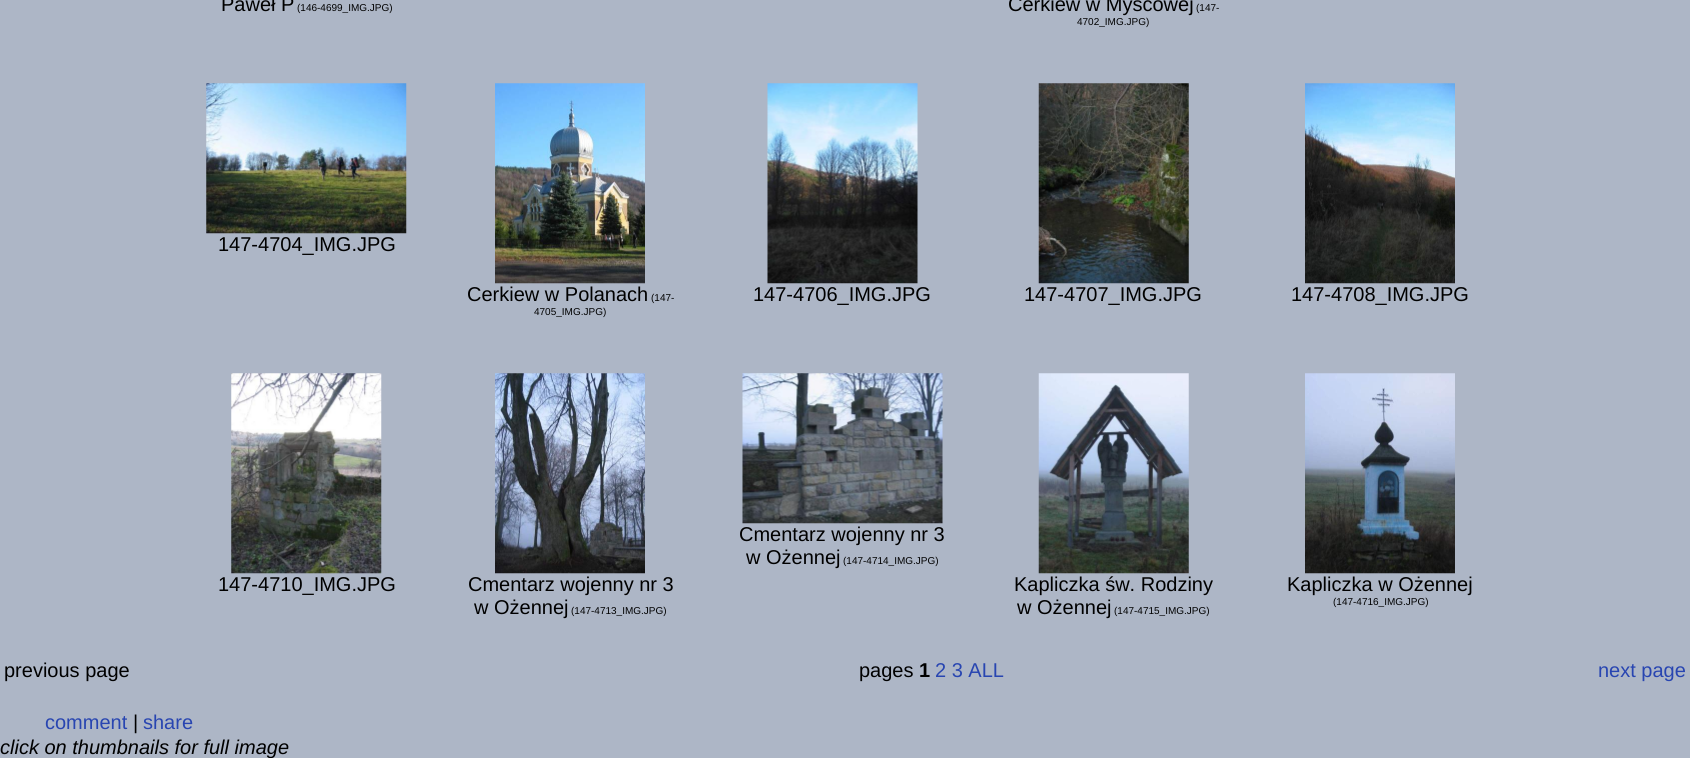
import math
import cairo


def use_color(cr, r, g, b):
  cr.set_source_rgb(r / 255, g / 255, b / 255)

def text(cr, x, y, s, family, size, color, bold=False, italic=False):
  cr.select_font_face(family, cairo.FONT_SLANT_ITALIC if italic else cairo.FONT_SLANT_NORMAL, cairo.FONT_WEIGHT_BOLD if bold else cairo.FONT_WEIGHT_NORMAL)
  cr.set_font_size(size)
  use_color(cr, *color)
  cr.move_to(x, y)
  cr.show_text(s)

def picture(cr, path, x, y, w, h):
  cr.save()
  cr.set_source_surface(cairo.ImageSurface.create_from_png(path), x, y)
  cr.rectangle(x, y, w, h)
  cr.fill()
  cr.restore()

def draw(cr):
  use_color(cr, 173, 182, 198)
  cr.paint()
  picture(cr, "img_01.png", 206, 83, 201, 151)
  picture(cr, "img_02.png", 495, 83, 150, 201)
  picture(cr, "img_03.png", 767, 83, 151, 201)
  picture(cr, "img_04.png", 1038, 83, 151, 201)
  picture(cr, "img_05.png", 1305, 83, 150, 201)
  picture(cr, "img_06.png", 742, 373, 201, 151)
  picture(cr, "img_07.png", 231, 373, 151, 201)
  picture(cr, "img_08.png", 495, 373, 150, 201)
  picture(cr, "img_09.png", 1038, 373, 151, 201)
  picture(cr, "img_10.png", 1305, 373, 150, 201)
  text(cr, 221, 11, "Paweł P", "Liberation Sans", 20, (0, 0, 0))
  text(cr, 297, 11, "(146-4699_IMG.JPG)", "Liberation Sans", 10, (0, 0, 0))
  text(cr, 1008, 11, "Cerkiew w Myscowej", "Liberation Sans", 20, (0, 0, 0))
  text(cr, 1196, 11, "(147-", "Liberation Sans", 10, (0, 0, 0))
  text(cr, 1077, 25, "4702_IMG.JPG)", "Liberation Sans", 10, (0, 0, 0))
  text(cr, 218, 251, "147-4704_IMG.JPG", "Liberation Sans", 20, (0, 0, 0))
  text(cr, 467, 301, "Cerkiew w Polanach", "Liberation Sans", 20, (0, 0, 0))
  text(cr, 651, 301, "(147-", "Liberation Sans", 10, (0, 0, 0))
  text(cr, 534, 315, "4705_IMG.JPG)", "Liberation Sans", 10, (0, 0, 0))
  text(cr, 753, 301, "147-4706_IMG.JPG", "Liberation Sans", 20, (0, 0, 0))
  text(cr, 1024, 301, "147-4707_IMG.JPG", "Liberation Sans", 20, (0, 0, 0))
  text(cr, 1291, 301, "147-4708_IMG.JPG", "Liberation Sans", 20, (0, 0, 0))
  text(cr, 739, 541, "Cmentarz wojenny nr 3", "Liberation Sans", 20, (0, 0, 0))
  text(cr, 746, 564, "w Ożennej", "Liberation Sans", 20, (0, 0, 0))
  text(cr, 843, 564, "(147-4714_IMG.JPG)", "Liberation Sans", 10, (0, 0, 0))
  text(cr, 218, 591, "147-4710_IMG.JPG", "Liberation Sans", 20, (0, 0, 0))
  text(cr, 468, 591, "Cmentarz wojenny nr 3", "Liberation Sans", 20, (0, 0, 0))
  text(cr, 474, 614, "w Ożennej", "Liberation Sans", 20, (0, 0, 0))
  text(cr, 571, 614, "(147-4713_IMG.JPG)", "Liberation Sans", 10, (0, 0, 0))
  text(cr, 1014, 591, "Kapliczka św. Rodziny", "Liberation Sans", 20, (0, 0, 0))
  text(cr, 1017, 614, "w Ożennej", "Liberation Sans", 20, (0, 0, 0))
  text(cr, 1114, 614, "(147-4715_IMG.JPG)", "Liberation Sans", 10, (0, 0, 0))
  text(cr, 1287, 591, "Kapliczka w Ożennej", "Liberation Sans", 20, (0, 0, 0))
  text(cr, 1333, 605, "(147-4716_IMG.JPG)", "Liberation Sans", 10, (0, 0, 0))
  text(cr, 4, 677, "previous page", "Liberation Sans", 20, (0, 0, 0))
  text(cr, 859, 677, "pages", "Liberation Sans", 20, (0, 0, 0))
  text(cr, 919, 677, "1", "Liberation Sans", 20, (0, 0, 0), bold=True)
  text(cr, 935, 677, "2 3 ALL", "Liberation Sans", 20, (40, 69, 177))
  text(cr, 1598, 677, "next page", "Liberation Sans", 20, (40, 69, 177))
  text(cr, 45, 729, "comment", "Liberation Sans", 20, (40, 69, 177))
  text(cr, 133, 729, "|", "Liberation Sans", 20, (0, 0, 0))
  text(cr, 143, 729, "share", "Liberation Sans", 20, (40, 69, 177))
  text(cr, 0, 754, "click on thumbnails for full image", "Liberation Sans", 20, (0, 0, 0), italic=True)


surface = cairo.ImageSurface(cairo.FORMAT_RGB24, 1690, 758)
cr = cairo.Context(surface)
options = cairo.FontOptions()
options.set_hint_metrics(cairo.HINT_METRICS_OFF)
options.set_hint_style(cairo.HINT_STYLE_NONE)
cr.set_font_options(options)
cr.set_miter_limit(4)
draw(cr)
surface.write_to_png("out.png")
